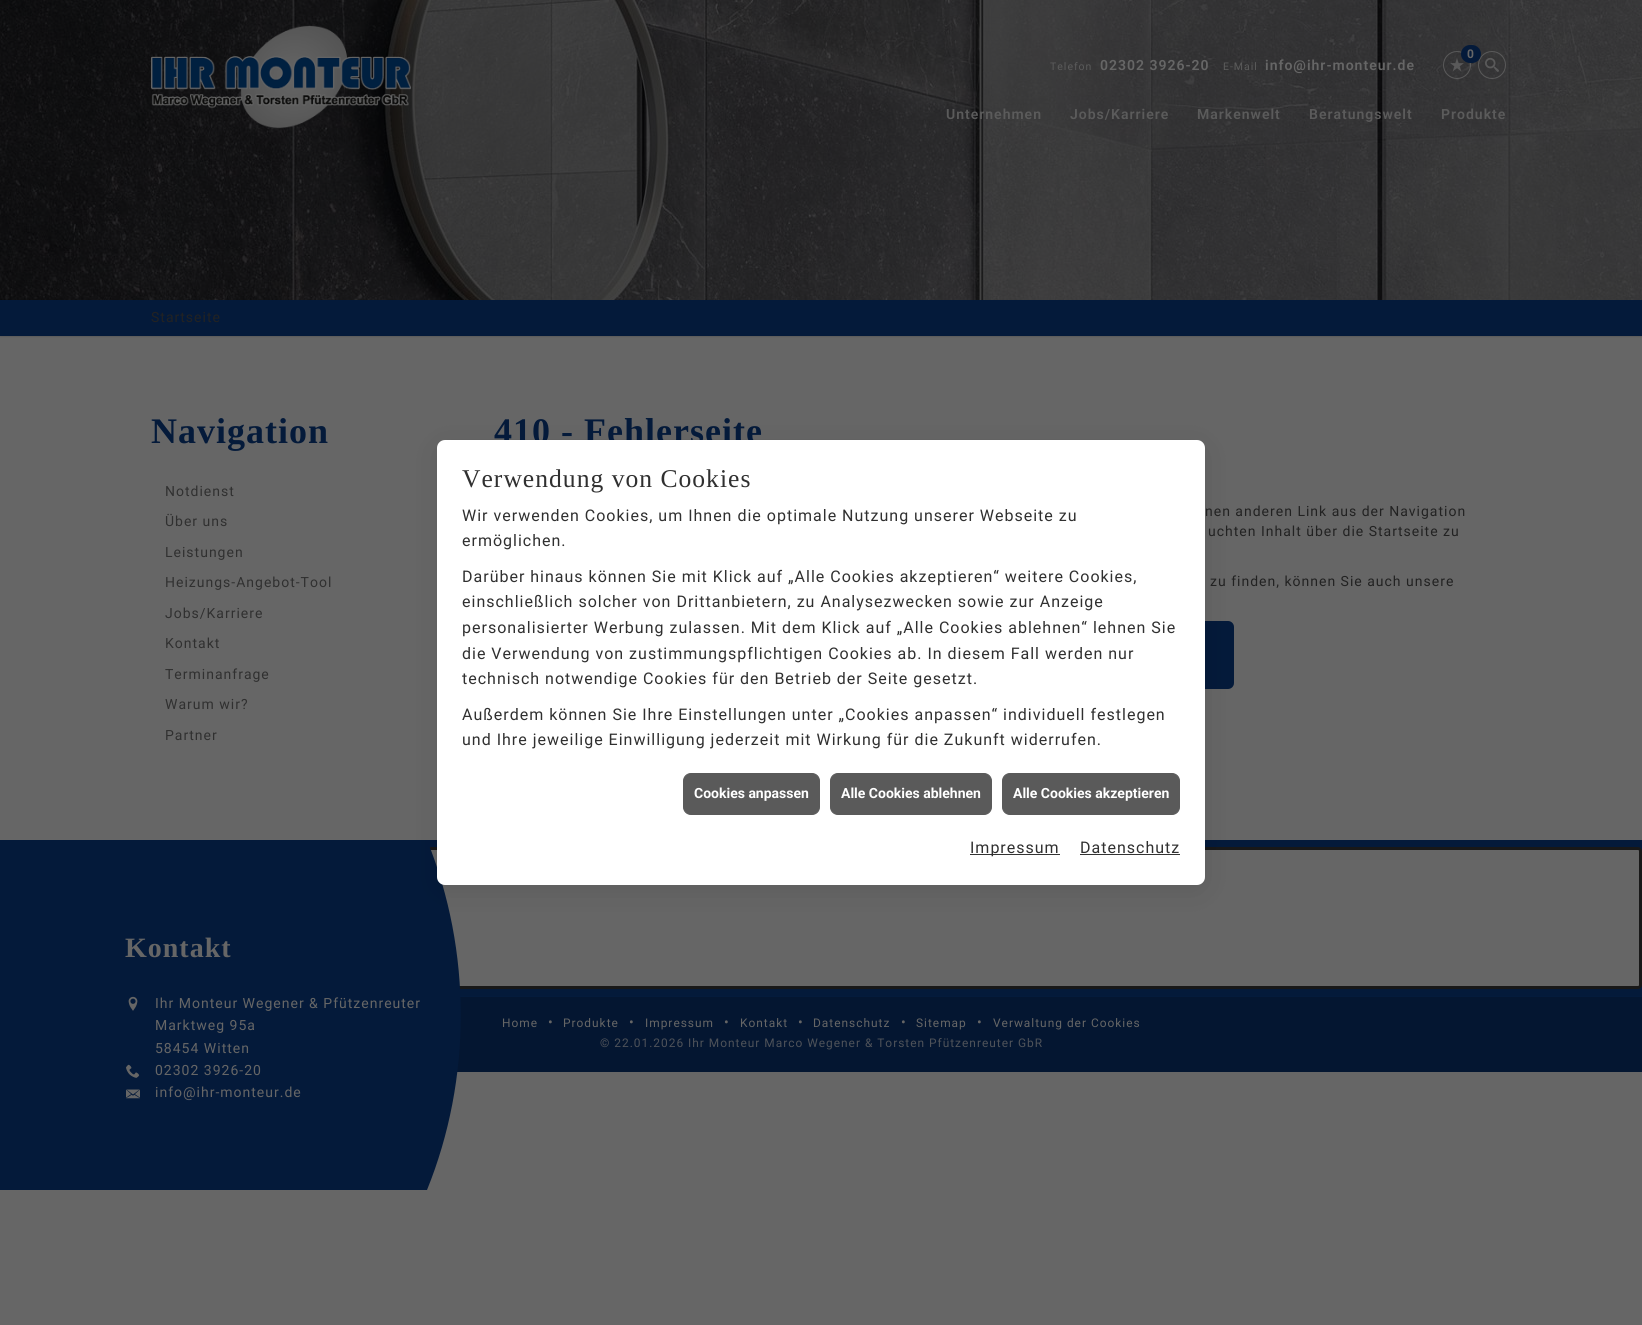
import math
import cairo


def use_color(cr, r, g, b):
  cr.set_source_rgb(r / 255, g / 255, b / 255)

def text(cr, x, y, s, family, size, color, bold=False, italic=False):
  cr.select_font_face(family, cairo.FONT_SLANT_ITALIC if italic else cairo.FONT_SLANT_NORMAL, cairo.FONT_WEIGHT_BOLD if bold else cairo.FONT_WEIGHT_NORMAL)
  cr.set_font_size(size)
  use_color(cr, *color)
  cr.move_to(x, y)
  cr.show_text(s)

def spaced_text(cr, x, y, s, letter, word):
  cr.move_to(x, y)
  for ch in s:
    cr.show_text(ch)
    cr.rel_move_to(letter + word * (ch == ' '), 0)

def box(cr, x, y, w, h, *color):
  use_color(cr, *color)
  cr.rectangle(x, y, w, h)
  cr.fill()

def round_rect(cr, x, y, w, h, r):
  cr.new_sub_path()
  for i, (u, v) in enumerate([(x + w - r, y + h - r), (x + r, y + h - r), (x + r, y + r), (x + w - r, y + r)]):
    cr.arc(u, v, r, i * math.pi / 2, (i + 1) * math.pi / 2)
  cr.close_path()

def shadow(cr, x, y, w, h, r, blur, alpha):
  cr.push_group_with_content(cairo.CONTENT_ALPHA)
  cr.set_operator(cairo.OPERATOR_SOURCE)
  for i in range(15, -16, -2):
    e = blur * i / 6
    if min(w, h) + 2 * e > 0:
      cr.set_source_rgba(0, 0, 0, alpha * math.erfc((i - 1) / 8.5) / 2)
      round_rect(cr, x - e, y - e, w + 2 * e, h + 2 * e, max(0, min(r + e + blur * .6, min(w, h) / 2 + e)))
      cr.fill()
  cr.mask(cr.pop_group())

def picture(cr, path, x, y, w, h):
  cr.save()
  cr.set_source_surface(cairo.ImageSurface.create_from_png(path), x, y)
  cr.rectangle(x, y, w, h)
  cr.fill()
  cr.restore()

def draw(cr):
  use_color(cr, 102, 102, 102)
  cr.paint()
  use_color(cr, 0, 0, 0)
  shadow(cr, 0, 301, 1642, 36, 0, 0.5, 0.1)
  picture(cr, "img_01.png", 0, 0, 1642, 300)
  picture(cr, "img_02.png", 151, 25, 260, 104)
  cr.arc(1457, 65, 13.5, 0, 2 * math.pi)
  cr.set_source_rgba(0.4, 0.4, 0.4, 0.75)
  cr.set_line_width(1)
  cr.stroke()
  picture(cr, "img_03.png", 1450, 58, 14, 14)
  cr.arc(1492, 65, 13.5, 0, 2 * math.pi)
  cr.stroke()
  use_color(cr, 4, 26, 58)
  round_rect(cr, 1461, 45, 20, 18, 9)
  cr.fill()
  picture(cr, "img_04.png", 1485, 57, 14, 15)
  box(cr, 0, 300, 1642, 36, 4, 26, 58)
  round_rect(cr, 750, 621, 484, 68, 6)
  cr.fill()
  box(cr, 427, 840, 1215, 156, 4, 26, 58)
  use_color(cr, 102, 102, 102)
  round_rect(cr, 1.5, 848.5, 1639, 139, 2.5)
  cr.fill_preserve()
  use_color(cr, 24, 24, 24)
  cr.set_line_width(3)
  cr.stroke()
  box(cr, 457, 997, 1185, 75, 4, 22, 49)
  box(cr, 460, 996, 1182, 1, 4, 27, 60)
  use_color(cr, 4, 26, 58)
  cr.new_path()
  cr.move_to(0, 840)
  cr.line_to(427, 840)
  cr.curve_to(472, 951, 472, 1079, 427, 1190)
  cr.line_to(0, 1190)
  cr.close_path()
  cr.fill()
  picture(cr, "img_05.png", 128, 996, 10, 15)
  picture(cr, "img_06.png", 126, 1064, 14, 14)
  picture(cr, "img_07.png", 126, 1089, 14, 10)
  use_color(cr, 0, 0, 0)
  shadow(cr, 437, 446, 768, 445, 8, 14, 0.1)
  cr.select_font_face("Roboto", cairo.FONT_SLANT_NORMAL, cairo.FONT_WEIGHT_BOLD)
  cr.set_font_size(12)
  use_color(cr, 102, 102, 102)
  spaced_text(cr, 1467, 58, "0", 1, 0)
  cr.select_font_face("Roboto")
  cr.set_font_size(10.5)
  use_color(cr, 91, 91, 91)
  spaced_text(cr, 1050, 70, "Telefon", 1, 0)
  cr.select_font_face("Roboto SemiBold")
  cr.set_font_size(14)
  use_color(cr, 102, 102, 102)
  spaced_text(cr, 1100, 70, "02302 3926-20", 1, 0)
  cr.select_font_face("Roboto")
  cr.set_font_size(10.5)
  use_color(cr, 91, 91, 91)
  spaced_text(cr, 1223, 70, "E-Mail", 1, 0)
  cr.select_font_face("Roboto SemiBold")
  cr.set_font_size(14)
  use_color(cr, 102, 102, 102)
  spaced_text(cr, 1265, 70, "info@ihr-monteur.de", 1, 0)
  use_color(cr, 91, 91, 91)
  spaced_text(cr, 946, 119, "Unternehmen", 1, 0)
  spaced_text(cr, 1070, 119, "Jobs/Karriere", 1, 0)
  spaced_text(cr, 1197, 119, "Markenwelt", 1, 0)
  spaced_text(cr, 1309, 119, "Beratungswelt", 1, 0)
  spaced_text(cr, 1441, 119, "Produkte", 1, 0)
  cr.select_font_face("Roboto")
  use_color(cr, 34, 34, 34)
  spaced_text(cr, 151, 322, "Startseite", 1, 0)
  cr.select_font_face("Liberation Serif", cairo.FONT_SLANT_NORMAL, cairo.FONT_WEIGHT_BOLD)
  cr.set_font_size(36)
  use_color(cr, 4, 26, 58)
  spaced_text(cr, 151, 443, "Navigation", 1, 0)
  cr.select_font_face("Roboto")
  cr.set_font_size(14)
  use_color(cr, 48, 48, 48)
  spaced_text(cr, 165, 496, "Notdienst", 1, 0)
  spaced_text(cr, 165, 526, "Über uns", 1, 0)
  spaced_text(cr, 165, 557, "Leistungen", 1, 0)
  spaced_text(cr, 165, 587, "Heizungs-Angebot-Tool", 1, 0)
  spaced_text(cr, 165, 618, "Jobs/Karriere", 1, 0)
  spaced_text(cr, 165, 648, "Kontakt", 1, 0)
  spaced_text(cr, 165, 679, "Terminanfrage", 1, 0)
  spaced_text(cr, 165, 709, "Warum wir?", 1, 0)
  spaced_text(cr, 165, 740, "Partner", 1, 0)
  cr.select_font_face("Liberation Serif", cairo.FONT_SLANT_NORMAL, cairo.FONT_WEIGHT_BOLD)
  cr.set_font_size(36)
  use_color(cr, 4, 26, 58)
  spaced_text(cr, 494, 443, "410 - Fehlerseite", 1, 0)
  cr.select_font_face("Roboto")
  cr.set_font_size(14)
  use_color(cr, 34, 34, 34)
  spaced_text(cr, 1205, 516, "nen anderen Link aus der Navigation", 1, 0)
  spaced_text(cr, 1208, 536, "uchten Inhalt über die Startseite zu", 1, 0)
  spaced_text(cr, 1210, 586, "zu finden, können Sie auch unsere", 1, 0)
  cr.select_font_face("Liberation Serif", cairo.FONT_SLANT_NORMAL, cairo.FONT_WEIGHT_BOLD)
  cr.set_font_size(28)
  use_color(cr, 102, 102, 102)
  spaced_text(cr, 125, 957, "Kontakt", 1, 0)
  cr.select_font_face("Roboto")
  cr.set_font_size(14)
  spaced_text(cr, 155, 1008, "Ihr Monteur Wegener & Pfützenreuter", 1, 0)
  spaced_text(cr, 155, 1030, "Marktweg 95a", 1, 0)
  spaced_text(cr, 155, 1053, "58454 Witten", 1, 0)
  spaced_text(cr, 155, 1075, "02302 3926-20", 1, 0)
  spaced_text(cr, 155, 1097, "info@ihr-monteur.de", 1, 0)
  cr.set_font_size(11.9)
  spaced_text(cr, 502, 1027, "Home", 1, 0)
  cr.set_font_size(14)
  spaced_text(cr, 548, 1027, "•", 1, 0)
  cr.set_font_size(11.9)
  spaced_text(cr, 563, 1027, "Produkte", 1, 0)
  cr.set_font_size(14)
  spaced_text(cr, 629, 1027, "•", 1, 0)
  cr.set_font_size(11.9)
  spaced_text(cr, 645, 1027, "Impressum", 1, 0)
  cr.set_font_size(14)
  spaced_text(cr, 724, 1027, "•", 1, 0)
  cr.set_font_size(11.9)
  spaced_text(cr, 740, 1027, "Kontakt", 1, 0)
  cr.set_font_size(14)
  spaced_text(cr, 798, 1027, "•", 1, 0)
  cr.set_font_size(11.9)
  spaced_text(cr, 813, 1027, "Datenschutz", 1, 0)
  cr.set_font_size(14)
  spaced_text(cr, 901, 1027, "•", 1, 0)
  cr.set_font_size(11.9)
  spaced_text(cr, 916, 1027, "Sitemap", 1, 0)
  cr.set_font_size(14)
  spaced_text(cr, 977, 1027, "•", 1, 0)
  cr.set_font_size(11.9)
  spaced_text(cr, 993, 1027, "Verwaltung der Cookies", 1, 0)
  use_color(cr, 78, 82, 89)
  spaced_text(cr, 600, 1047, "© 22.01.2026 Ihr Monteur Marco Wegener & Torsten Pfützenreuter GbR", 1, 0)
  use_color(cr, 255, 255, 255)
  round_rect(cr, 437, 440, 768, 445, 8)
  cr.fill()
  cr.select_font_face("Liberation Serif")
  cr.set_font_size(25.6)
  use_color(cr, 48, 48, 48)
  spaced_text(cr, 462, 487, "Verwendung von Cookies", 1, 0)
  cr.select_font_face("Roboto")
  cr.set_font_size(16)
  spaced_text(cr, 462, 521, "Wir verwenden Cookies, um Ihnen die optimale Nutzung unserer Webseite zu", 1, 0)
  spaced_text(cr, 462, 546, "ermöglichen.", 1, 0)
  spaced_text(cr, 462, 582, "Darüber hinaus können Sie mit Klick auf „Alle Cookies akzeptieren“ weitere Cookies,", 1, 0)
  spaced_text(cr, 462, 607, "einschließlich solcher von Drittanbietern, zu Analysezwecken sowie zur Anzeige", 1, 0)
  spaced_text(cr, 462, 633, "personalisierter Werbung zulassen. Mit dem Klick auf „Alle Cookies ablehnen“ lehnen Sie", 1, 0)
  spaced_text(cr, 462, 659, "die Verwendung von zustimmungspflichtigen Cookies ab. In diesem Fall werden nur", 1, 0)
  spaced_text(cr, 462, 684, "technisch notwendige Cookies für den Betrieb der Seite gesetzt.", 1, 0)
  spaced_text(cr, 462, 720, "Außerdem können Sie Ihre Einstellungen unter „Cookies anpassen“ individuell festlegen", 1, 0)
  spaced_text(cr, 462, 745, "und Ihre jeweilige Einwilligung jederzeit mit Wirkung für die Zukunft widerrufen.", 1, 0)
  use_color(cr, 90, 90, 90)
  round_rect(cr, 683.5, 773.5, 136, 41, 7.5)
  cr.fill_preserve()
  cr.set_line_width(1)
  cr.stroke()
  text(cr, 694, 798, "Cookies anpassen", "Roboto", 14, (255, 255, 255), bold=True)
  use_color(cr, 90, 90, 90)
  round_rect(cr, 830.5, 773.5, 161, 41, 7.5)
  cr.fill_preserve()
  cr.stroke()
  text(cr, 841, 798, "Alle Cookies ablehnen", "Roboto", 14, (255, 255, 255), bold=True)
  use_color(cr, 90, 90, 90)
  round_rect(cr, 1002.5, 773.5, 177, 41, 7.5)
  cr.fill_preserve()
  cr.stroke()
  text(cr, 1013, 798, "Alle Cookies akzeptieren", "Roboto", 14, (255, 255, 255), bold=True)
  box(cr, 970, 854, 90, 1, 51, 51, 51)
  cr.select_font_face("Roboto")
  cr.set_font_size(16)
  use_color(cr, 48, 48, 48)
  spaced_text(cr, 970, 853, "Impressum", 1, 0)
  spaced_text(cr, 1080, 853, "Datenschutz", 1, 0)
  box(cr, 1080, 854, 100, 1, 51, 51, 51)


surface = cairo.ImageSurface(cairo.FORMAT_RGB24, 1642, 1325)
cr = cairo.Context(surface)
options = cairo.FontOptions()
options.set_hint_metrics(cairo.HINT_METRICS_OFF)
options.set_hint_style(cairo.HINT_STYLE_NONE)
cr.set_font_options(options)
cr.set_miter_limit(4)
draw(cr)
surface.write_to_png("out.png")
